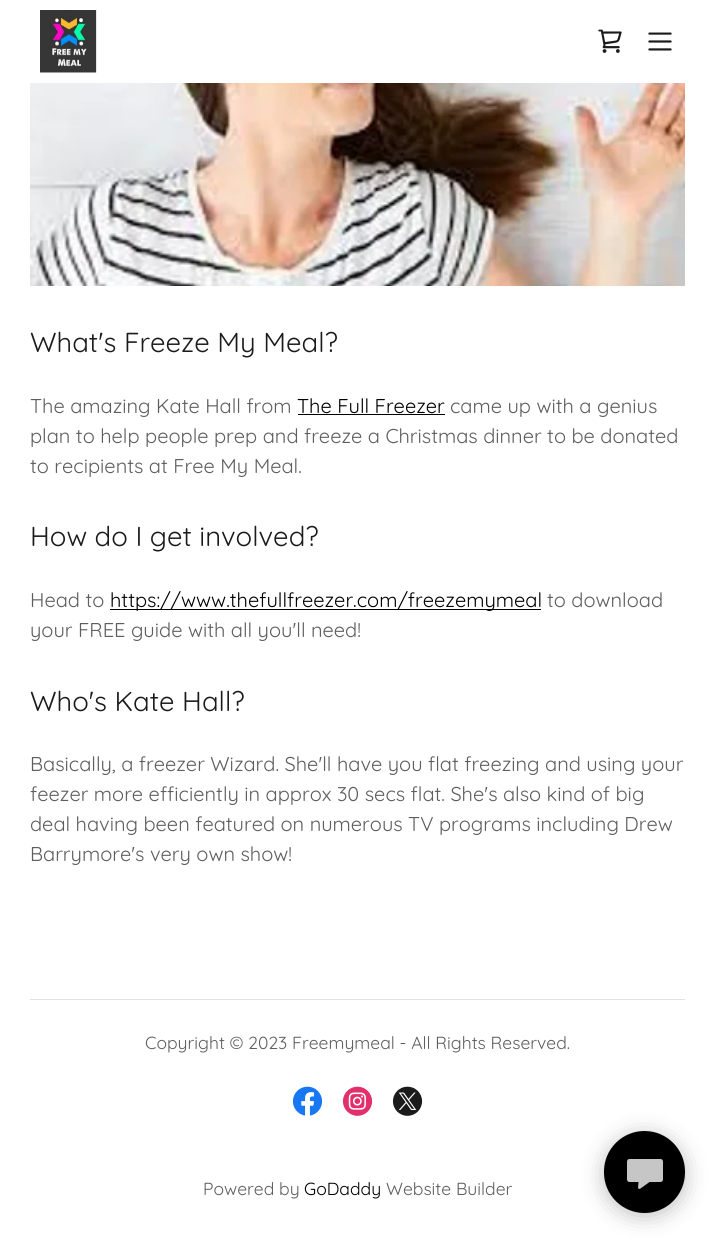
import math
import cairo


def use_color(cr, r, g, b):
  cr.set_source_rgb(r / 255, g / 255, b / 255)

def text(cr, x, y, s, family, size, color, bold=False, italic=False):
  cr.select_font_face(family, cairo.FONT_SLANT_ITALIC if italic else cairo.FONT_SLANT_NORMAL, cairo.FONT_WEIGHT_BOLD if bold else cairo.FONT_WEIGHT_NORMAL)
  cr.set_font_size(size)
  use_color(cr, *color)
  cr.move_to(x, y)
  cr.show_text(s)

def box(cr, x, y, w, h, *color):
  use_color(cr, *color)
  cr.rectangle(x, y, w, h)
  cr.fill()

def round_rect(cr, x, y, w, h, r):
  cr.new_sub_path()
  for i, (u, v) in enumerate([(x + w - r, y + h - r), (x + r, y + h - r), (x + r, y + r), (x + w - r, y + r)]):
    cr.arc(u, v, r, i * math.pi / 2, (i + 1) * math.pi / 2)
  cr.close_path()

def shadow(cr, x, y, w, h, r, blur, alpha):
  cr.push_group_with_content(cairo.CONTENT_ALPHA)
  cr.set_operator(cairo.OPERATOR_SOURCE)
  for i in range(15, -16, -2):
    e = blur * i / 6
    if min(w, h) + 2 * e > 0:
      cr.set_source_rgba(0, 0, 0, alpha * math.erfc((i - 1) / 8.5) / 2)
      round_rect(cr, x - e, y - e, w + 2 * e, h + 2 * e, max(0, min(r + e + blur * .6, min(w, h) / 2 + e)))
      cr.fill()
  cr.mask(cr.pop_group())

def picture(cr, path, x, y, w, h):
  cr.save()
  cr.set_source_surface(cairo.ImageSurface.create_from_png(path), x, y)
  cr.rectangle(x, y, w, h)
  cr.fill()
  cr.restore()

def draw(cr):
  use_color(cr, 255, 255, 255)
  cr.paint()
  picture(cr, "img_01.png", 40, 10, 57, 63)
  picture(cr, "img_02.png", 598, 29, 24, 24)
  picture(cr, "img_03.png", 648, 32, 24, 19)
  picture(cr, "img_04.png", 30, 83, 655, 203)
  box(cr, 298, 414, 147, 1, 0, 0, 0)
  box(cr, 110, 609, 431, 1, 0, 0, 0)
  box(cr, 30, 999, 655, 1, 226, 226, 226)
  picture(cr, "img_05.png", 292, 1086, 31, 30)
  picture(cr, "img_06.png", 342, 1086, 31, 30)
  picture(cr, "img_07.png", 392, 1086, 31, 30)
  use_color(cr, 0, 0, 0)
  shadow(cr, 604, 1135, 81, 81, 40.5, 11, 0.25)
  use_color(cr, 0, 0, 0)
  round_rect(cr, 604, 1131, 81, 82, 40.5)
  cr.fill()
  picture(cr, "img_08.png", 627, 1159, 36, 30)
  text(cr, 30, 352, "What's Freeze My Meal?", "Quicksand", 27.5, (27, 27, 27))
  text(cr, 30, 413, "The amazing Kate Hall from", "Quicksand", 20, (94, 94, 94))
  text(cr, 297, 413, "The Full Freezer", "Quicksand", 20, (0, 0, 0))
  text(cr, 450, 413, "came up with a genius", "Quicksand", 20, (94, 94, 94))
  text(cr, 30, 443, "plan to help people prep and freeze a Christmas dinner to be donated", "Quicksand", 20, (94, 94, 94))
  text(cr, 30, 473, "to recipients at Free My Meal.", "Quicksand", 20, (94, 94, 94))
  text(cr, 30, 546, "How do I get involved?", "Quicksand", 27.5, (27, 27, 27))
  text(cr, 30, 607, "Head to", "Quicksand", 20, (94, 94, 94))
  text(cr, 110, 607, "https://www.thefullfreezer.com/freezemymeal", "Quicksand", 20, (0, 0, 0))
  text(cr, 547, 607, "to download", "Quicksand", 20, (94, 94, 94))
  text(cr, 30, 637, "your FREE guide with all you'll need!", "Quicksand", 20, (94, 94, 94))
  text(cr, 30, 711, "Who's Kate Hall?", "Quicksand", 27.5, (27, 27, 27))
  text(cr, 30, 771, "Basically, a freezer Wizard. She'll have you flat freezing and using your", "Quicksand", 20, (94, 94, 94))
  text(cr, 30, 801, "feezer more efficiently in approx 30 secs flat. She's also kind of big", "Quicksand", 20, (94, 94, 94))
  text(cr, 30, 831, "deal having been featured on numerous TV programs including Drew", "Quicksand", 20, (94, 94, 94))
  text(cr, 30, 861, "Barrymore's very own show!", "Quicksand", 20, (94, 94, 94))
  text(cr, 145, 1049, "Copyright © 2023 Freemymeal - All Rights Reserved.", "Quicksand", 17.5, (94, 94, 94))
  text(cr, 203, 1195, "Powered by", "Quicksand", 17.5, (94, 94, 94))
  text(cr, 304, 1195, "GoDaddy", "Quicksand", 17.5, (0, 0, 0))
  text(cr, 386, 1195, "Website Builder", "Quicksand", 17.5, (94, 94, 94))


surface = cairo.ImageSurface(cairo.FORMAT_RGB24, 714, 1242)
cr = cairo.Context(surface)
options = cairo.FontOptions()
options.set_hint_metrics(cairo.HINT_METRICS_OFF)
options.set_hint_style(cairo.HINT_STYLE_NONE)
cr.set_font_options(options)
cr.set_miter_limit(4)
draw(cr)
surface.write_to_png("out.png")
